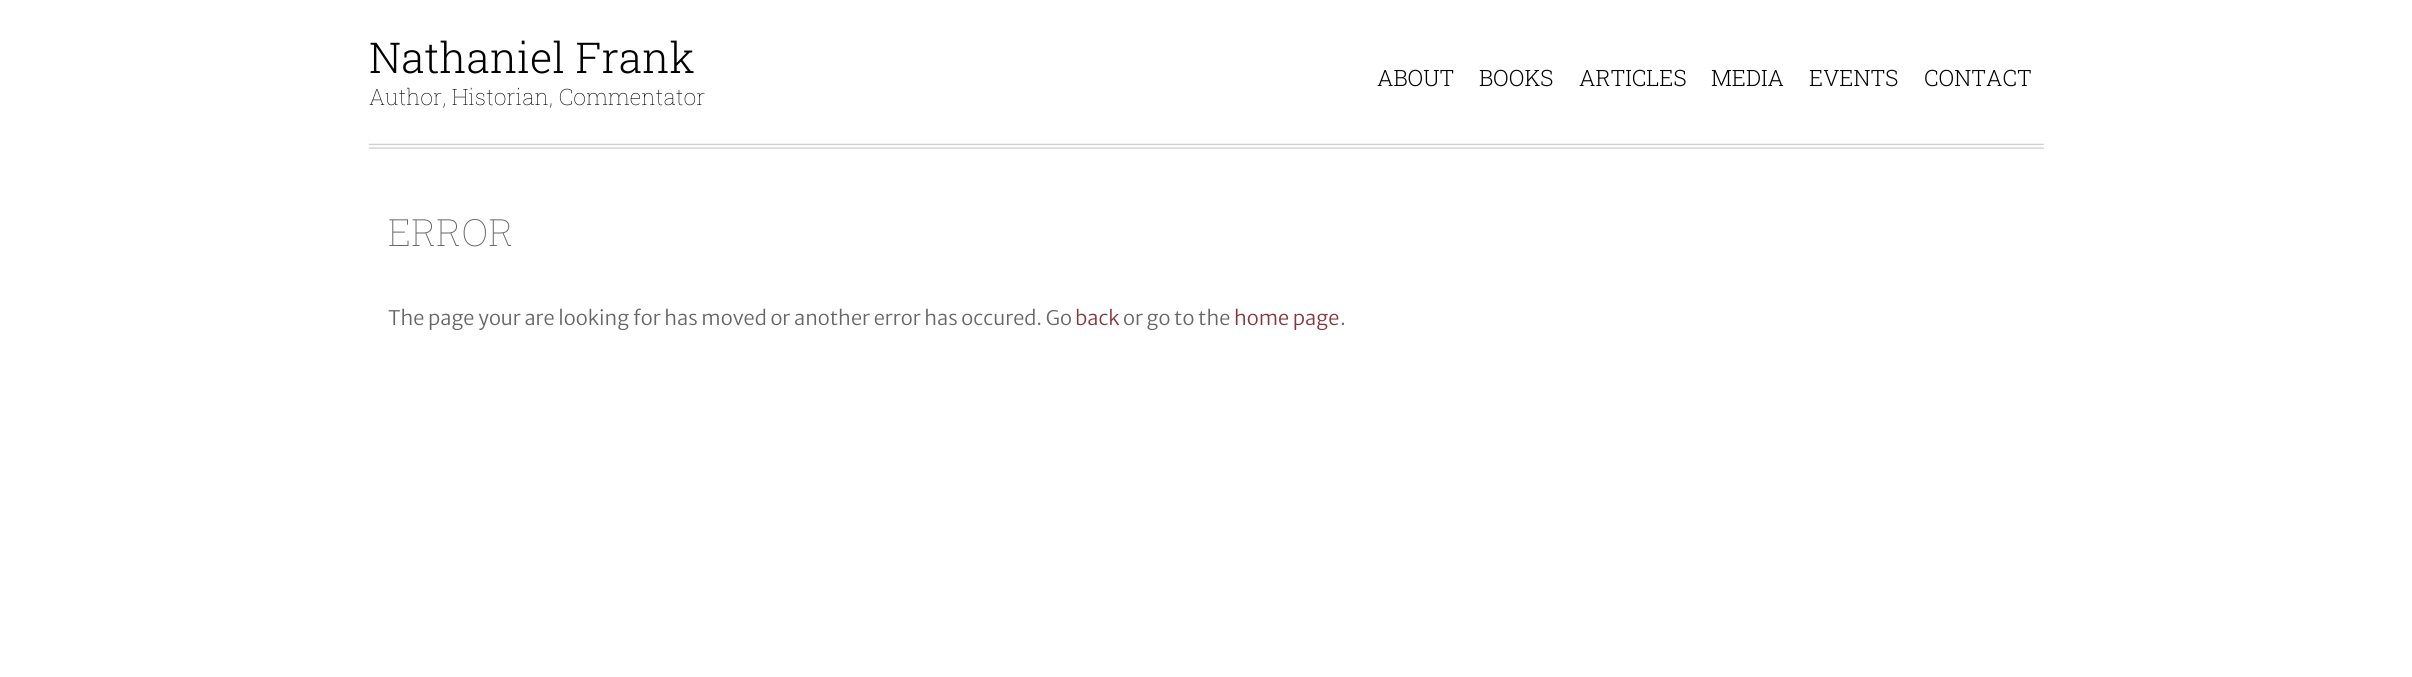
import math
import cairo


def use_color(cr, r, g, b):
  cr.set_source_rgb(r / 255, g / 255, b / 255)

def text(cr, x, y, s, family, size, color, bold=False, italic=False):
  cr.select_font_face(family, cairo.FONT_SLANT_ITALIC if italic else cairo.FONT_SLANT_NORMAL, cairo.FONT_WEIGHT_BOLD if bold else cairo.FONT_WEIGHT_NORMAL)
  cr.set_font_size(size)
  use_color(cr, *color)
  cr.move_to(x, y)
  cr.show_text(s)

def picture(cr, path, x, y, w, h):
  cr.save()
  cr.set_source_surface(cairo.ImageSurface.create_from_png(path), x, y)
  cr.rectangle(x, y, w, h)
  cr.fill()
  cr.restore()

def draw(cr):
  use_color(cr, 255, 255, 255)
  cr.paint()
  picture(cr, "img_01.png", 368, 143, 1676, 6)
  text(cr, 369, 73, "Nathaniel Frank", "Roboto Slab Light", 42.5, (0, 0, 0))
  text(cr, 369, 105, "Author, Historian, Commentator", "Roboto Slab Thin", 22.5, (0, 0, 0))
  text(cr, 1377, 86, "ABOUT", "Roboto Slab Light", 22.5, (0, 0, 0))
  text(cr, 1479, 86, "BOOKS", "Roboto Slab Light", 22.5, (0, 0, 0))
  text(cr, 1579, 86, "ARTICLES", "Roboto Slab Light", 22.5, (0, 0, 0))
  text(cr, 1711, 86, "MEDIA", "Roboto Slab Light", 22.5, (0, 0, 0))
  text(cr, 1809, 86, "EVENTS", "Roboto Slab Light", 22.5, (0, 0, 0))
  text(cr, 1924, 86, "CONTACT", "Roboto Slab Light", 22.5, (0, 0, 0))
  text(cr, 388, 246, "ERROR", "Roboto Slab Thin", 37.5, (102, 102, 102))
  text(cr, 388, 325, "The page your are looking for has moved or another error has occured. Go", "Merriweather Sans Light", 20, (102, 102, 102))
  text(cr, 1075, 325, "back", "Merriweather Sans Light", 20, (135, 53, 61))
  text(cr, 1123, 325, "or go to the", "Merriweather Sans Light", 20, (102, 102, 102))
  text(cr, 1234, 325, "home page", "Merriweather Sans Light", 20, (135, 53, 61))
  text(cr, 1340, 325, ".", "Merriweather Sans Light", 20, (102, 102, 102))


surface = cairo.ImageSurface(cairo.FORMAT_RGB24, 2412, 677)
cr = cairo.Context(surface)
options = cairo.FontOptions()
options.set_hint_metrics(cairo.HINT_METRICS_OFF)
options.set_hint_style(cairo.HINT_STYLE_NONE)
cr.set_font_options(options)
cr.set_miter_limit(4)
draw(cr)
surface.write_to_png("out.png")
